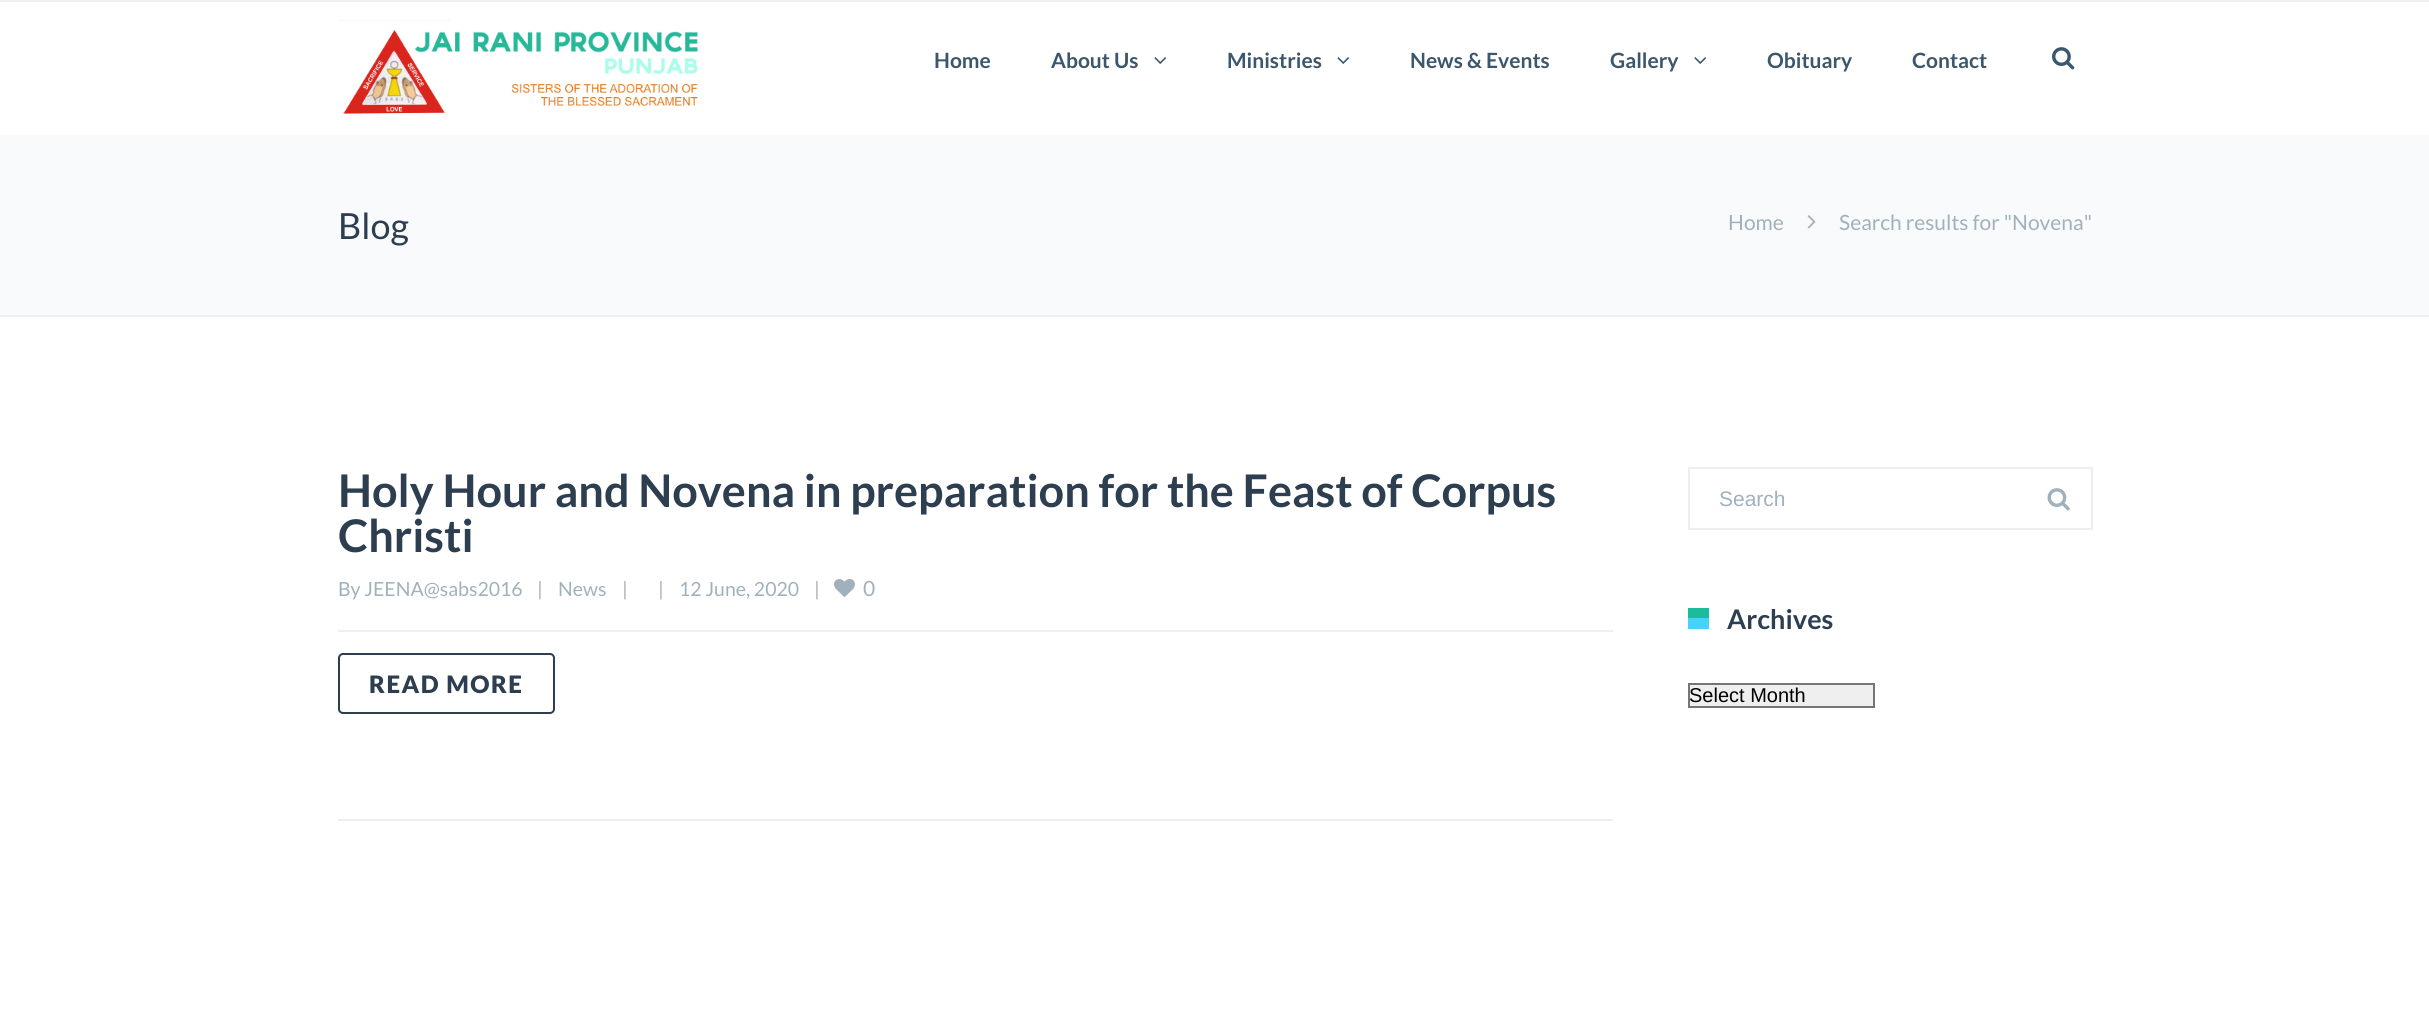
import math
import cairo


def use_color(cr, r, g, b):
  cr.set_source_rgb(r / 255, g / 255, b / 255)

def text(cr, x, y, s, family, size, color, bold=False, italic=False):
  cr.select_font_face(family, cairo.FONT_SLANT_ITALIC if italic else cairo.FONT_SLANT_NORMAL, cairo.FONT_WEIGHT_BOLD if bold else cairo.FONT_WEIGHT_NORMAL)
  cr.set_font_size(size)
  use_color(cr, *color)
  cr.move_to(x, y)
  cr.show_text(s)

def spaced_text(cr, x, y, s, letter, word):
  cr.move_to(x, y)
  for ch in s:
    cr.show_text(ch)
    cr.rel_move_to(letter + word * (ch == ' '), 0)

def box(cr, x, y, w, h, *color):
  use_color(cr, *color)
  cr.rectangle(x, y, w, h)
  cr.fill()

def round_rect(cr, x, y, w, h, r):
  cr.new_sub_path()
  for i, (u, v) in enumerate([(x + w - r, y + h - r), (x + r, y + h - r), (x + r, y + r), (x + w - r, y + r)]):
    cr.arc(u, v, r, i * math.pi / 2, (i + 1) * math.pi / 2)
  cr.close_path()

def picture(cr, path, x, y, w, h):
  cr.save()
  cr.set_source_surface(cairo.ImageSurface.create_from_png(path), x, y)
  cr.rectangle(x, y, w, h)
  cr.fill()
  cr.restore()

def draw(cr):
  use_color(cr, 255, 255, 255)
  cr.paint()
  box(cr, 0, 0, 2429, 2, 236, 240, 241)
  picture(cr, "img_01.png", 338, 20, 360, 94)
  picture(cr, "img_02.png", 1154, 57, 12, 7)
  picture(cr, "img_02.png", 1337, 57, 12, 7)
  picture(cr, "img_02.png", 1694, 57, 12, 7)
  picture(cr, "img_03.png", 2052, 47, 23, 23)
  box(cr, 0, 135, 2429, 180, 249, 250, 251)
  box(cr, 0, 315, 2429, 2, 236, 240, 241)
  picture(cr, "img_04.png", 1807, 215, 9, 14)
  box(cr, 338, 630, 1275, 2, 236, 240, 241)
  picture(cr, "img_05.png", 834, 579, 21, 18)
  round_rect(cr, 339, 654, 215, 59, 4)
  use_color(cr, 44, 62, 80)
  cr.stroke()
  box(cr, 338, 819, 1275, 2, 236, 240, 241)
  cr.rectangle(1689, 468, 403, 61)
  use_color(cr, 236, 238, 240)
  cr.stroke()
  picture(cr, "img_06.png", 2047, 488, 23, 23)
  box(cr, 1688, 608, 21, 10, 26, 188, 156)
  box(cr, 1688, 618, 21, 11, 70, 209, 255)
  use_color(cr, 239, 239, 239)
  cr.rectangle(1689, 684, 185, 23)
  cr.fill_preserve()
  use_color(cr, 118, 118, 118)
  cr.stroke()
  text(cr, 934, 68, "Home", "Lato", 21, (59, 87, 109), bold=True)
  text(cr, 1051, 68, "About Us", "Lato", 21, (59, 87, 109), bold=True)
  text(cr, 1227, 68, "Ministries", "Lato", 21, (59, 87, 109), bold=True)
  text(cr, 1410, 68, "News & Events", "Lato", 21, (59, 87, 109), bold=True)
  text(cr, 1610, 68, "Gallery", "Lato", 21, (59, 87, 109), bold=True)
  text(cr, 1767, 68, "Obituary", "Lato", 21, (59, 87, 109), bold=True)
  text(cr, 1912, 68, "Contact", "Lato", 21, (59, 87, 109), bold=True)
  text(cr, 338, 239, "Blog", "Lato", 36, (44, 62, 80))
  text(cr, 1728, 230, "Home", "Lato", 21, (161, 177, 188))
  text(cr, 1839, 230, "Search results for \"Novena\"", "Lato", 21, (161, 177, 188))
  text(cr, 338, 507, "Holy Hour and Novena in preparation for the Feast of Corpus", "Lato", 45, (44, 62, 80), bold=True)
  text(cr, 338, 552, "Christi", "Lato", 45, (44, 62, 80), bold=True)
  text(cr, 338, 596, "By JEENA@sabs2016", "Lato", 19.5, (161, 177, 188))
  text(cr, 537, 596, "|", "Lato", 19.5, (161, 177, 188))
  text(cr, 558, 596, "News", "Lato", 19.5, (161, 177, 188))
  text(cr, 622, 596, "|", "Lato", 19.5, (161, 177, 188))
  text(cr, 658, 596, "|", "Lato", 19.5, (161, 177, 188))
  text(cr, 679, 596, "12 June, 2020", "Lato", 19.5, (161, 177, 188))
  text(cr, 814, 596, "|", "Lato", 19.5, (161, 177, 188))
  text(cr, 863, 596, "0", "Lato", 21, (161, 177, 188))
  cr.select_font_face("Lato Black")
  cr.set_font_size(24)
  use_color(cr, 44, 62, 80)
  spaced_text(cr, 369, 693, "READ MORE", 1.5, 0)
  text(cr, 1719, 506, "Search", "Liberation Sans", 21, (161, 177, 188))
  text(cr, 1727, 629, "Archives", "Lato", 27, (44, 62, 80), bold=True)
  text(cr, 1689, 702, "Select Month", "Liberation Sans", 20, (0, 0, 0))


surface = cairo.ImageSurface(cairo.FORMAT_RGB24, 2429, 1010)
cr = cairo.Context(surface)
options = cairo.FontOptions()
options.set_hint_metrics(cairo.HINT_METRICS_OFF)
options.set_hint_style(cairo.HINT_STYLE_NONE)
cr.set_font_options(options)
cr.set_miter_limit(4)
draw(cr)
surface.write_to_png("out.png")
